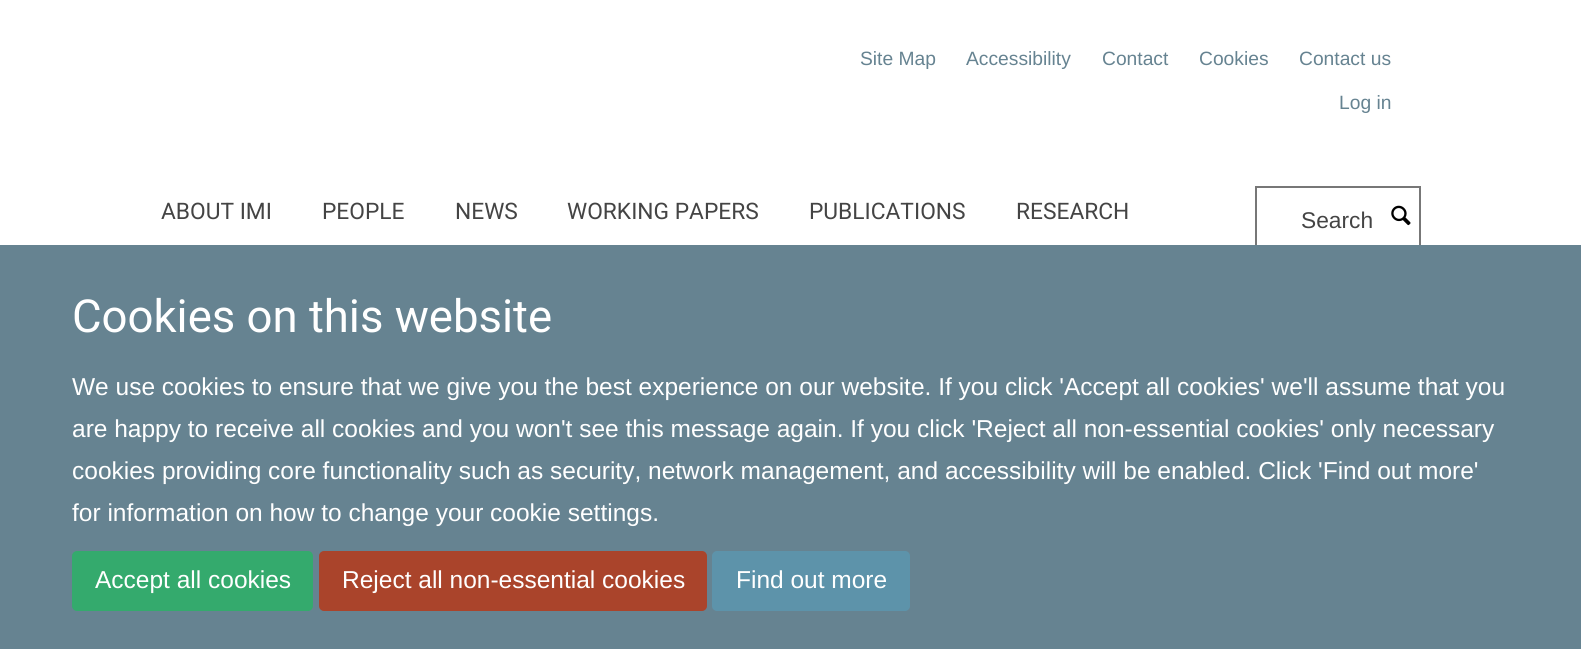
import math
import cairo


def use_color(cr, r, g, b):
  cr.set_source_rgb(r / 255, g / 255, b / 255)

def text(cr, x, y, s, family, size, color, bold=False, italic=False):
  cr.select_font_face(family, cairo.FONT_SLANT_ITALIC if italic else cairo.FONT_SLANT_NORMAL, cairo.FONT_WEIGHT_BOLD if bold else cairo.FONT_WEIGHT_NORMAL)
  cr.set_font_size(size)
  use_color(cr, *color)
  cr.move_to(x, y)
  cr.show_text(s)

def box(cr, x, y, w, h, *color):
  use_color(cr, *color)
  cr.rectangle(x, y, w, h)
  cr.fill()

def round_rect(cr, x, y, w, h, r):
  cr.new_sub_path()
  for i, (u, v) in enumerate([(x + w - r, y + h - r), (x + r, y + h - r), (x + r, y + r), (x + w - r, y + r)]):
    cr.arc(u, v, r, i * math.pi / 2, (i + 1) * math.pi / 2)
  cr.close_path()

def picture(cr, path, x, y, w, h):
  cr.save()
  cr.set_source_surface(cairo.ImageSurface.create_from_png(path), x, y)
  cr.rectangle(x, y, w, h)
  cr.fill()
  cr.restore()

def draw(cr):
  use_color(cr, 255, 255, 255)
  cr.paint()
  cr.rectangle(1256, 187, 164, 59)
  use_color(cr, 119, 119, 119)
  cr.stroke()
  picture(cr, "img_01.png", 1391, 205, 20, 21)
  box(cr, 0, 245, 1581, 404, 102, 131, 145)
  use_color(cr, 52, 170, 109)
  round_rect(cr, 73, 552, 239, 58, 4)
  cr.fill_preserve()
  cr.stroke()
  use_color(cr, 170, 68, 43)
  round_rect(cr, 320, 552, 386, 58, 4)
  cr.fill_preserve()
  cr.stroke()
  use_color(cr, 93, 147, 170)
  round_rect(cr, 713, 552, 196, 58, 4)
  cr.fill_preserve()
  cr.stroke()
  text(cr, 860, 65, "Site Map", "Liberation Sans", 19.25, (102, 131, 145))
  text(cr, 966, 65, "Accessibility", "Liberation Sans", 19.25, (102, 131, 145))
  text(cr, 1102, 65, "Contact", "Liberation Sans", 19.25, (102, 131, 145))
  text(cr, 1199, 65, "Cookies", "Liberation Sans", 19.25, (102, 131, 145))
  text(cr, 1299, 65, "Contact us", "Liberation Sans", 19.25, (102, 131, 145))
  text(cr, 1339, 109, "Log in", "Liberation Sans", 19.25, (102, 131, 145))
  text(cr, 161, 219, "ABOUT IMI", "Roboto", 22.75, (68, 68, 68))
  text(cr, 322, 219, "PEOPLE", "Roboto", 22.75, (68, 68, 68))
  text(cr, 455, 219, "NEWS", "Roboto", 22.75, (68, 68, 68))
  text(cr, 567, 219, "WORKING PAPERS", "Roboto", 22.75, (68, 68, 68))
  text(cr, 809, 219, "PUBLICATIONS", "Roboto", 22.75, (68, 68, 68))
  text(cr, 1016, 219, "RESEARCH", "Roboto", 22.75, (68, 68, 68))
  text(cr, 1301, 228, "Search", "Liberation Sans", 22.75, (68, 68, 68))
  text(cr, 72, 332, "Cookies on this website", "Roboto", 45.5, (255, 255, 255))
  text(cr, 72, 395, "We use cookies to ensure that we give you the best experience on our website. If you click 'Accept all cookies' we'll assume that you", "Liberation Sans", 24.5, (255, 255, 255))
  text(cr, 72, 437, "are happy to receive all cookies and you won't see this message again. If you click 'Reject all non-essential cookies' only necessary", "Liberation Sans", 24.5, (255, 255, 255))
  text(cr, 72, 479, "cookies providing core functionality such as security, network management, and accessibility will be enabled. Click 'Find out more'", "Liberation Sans", 24.5, (255, 255, 255))
  text(cr, 72, 521, "for information on how to change your cookie settings.", "Liberation Sans", 24.5, (255, 255, 255))
  text(cr, 95, 588, "Accept all cookies", "Liberation Sans", 24.5, (255, 255, 255))
  text(cr, 342, 588, "Reject all non-essential cookies", "Liberation Sans", 24.5, (255, 255, 255))
  text(cr, 736, 588, "Find out more", "Liberation Sans", 24.5, (255, 255, 255))


surface = cairo.ImageSurface(cairo.FORMAT_RGB24, 1581, 649)
cr = cairo.Context(surface)
options = cairo.FontOptions()
options.set_hint_metrics(cairo.HINT_METRICS_OFF)
options.set_hint_style(cairo.HINT_STYLE_NONE)
cr.set_font_options(options)
cr.set_miter_limit(4)
draw(cr)
surface.write_to_png("out.png")
